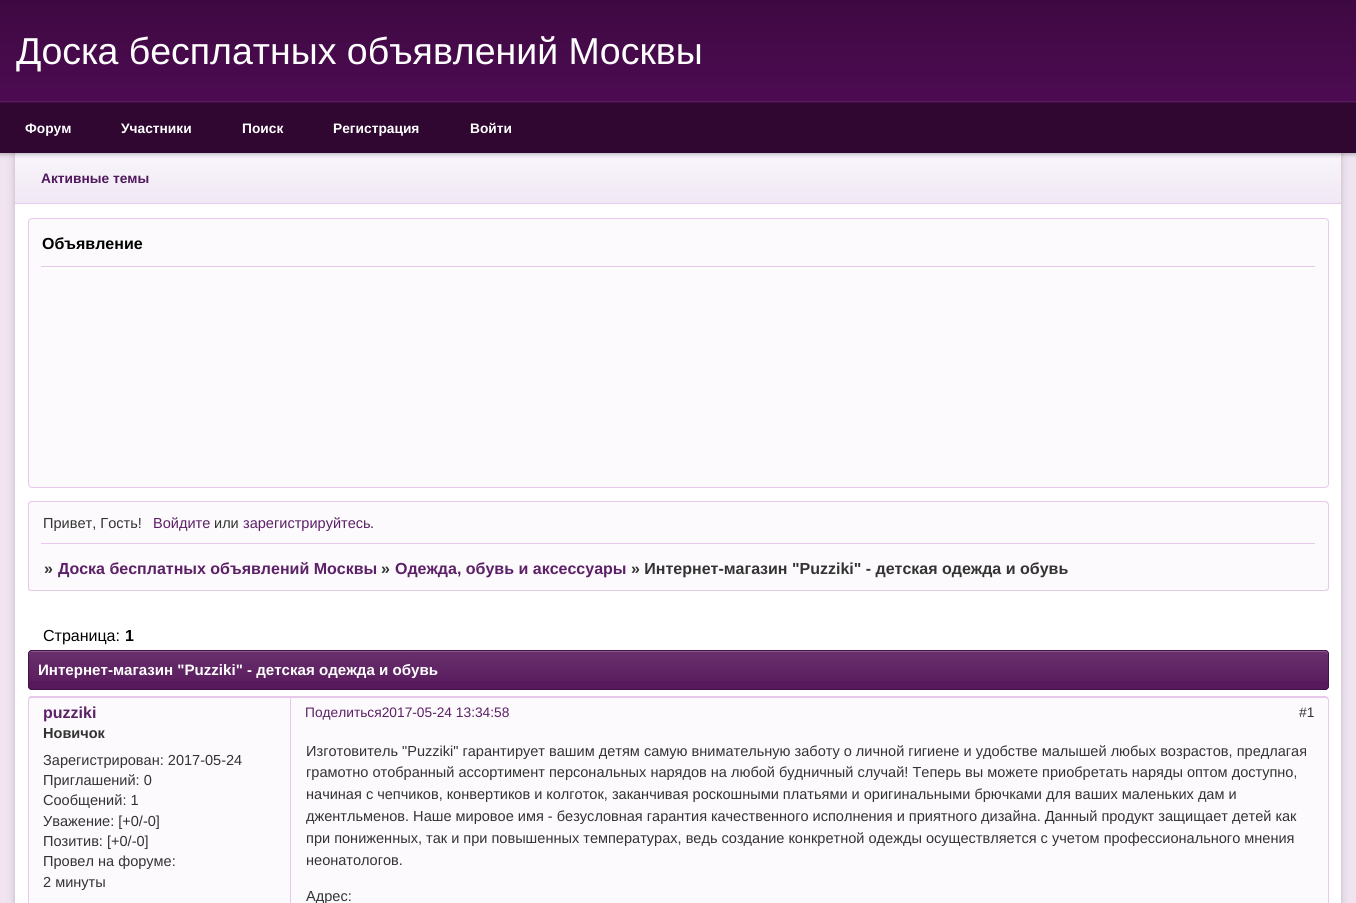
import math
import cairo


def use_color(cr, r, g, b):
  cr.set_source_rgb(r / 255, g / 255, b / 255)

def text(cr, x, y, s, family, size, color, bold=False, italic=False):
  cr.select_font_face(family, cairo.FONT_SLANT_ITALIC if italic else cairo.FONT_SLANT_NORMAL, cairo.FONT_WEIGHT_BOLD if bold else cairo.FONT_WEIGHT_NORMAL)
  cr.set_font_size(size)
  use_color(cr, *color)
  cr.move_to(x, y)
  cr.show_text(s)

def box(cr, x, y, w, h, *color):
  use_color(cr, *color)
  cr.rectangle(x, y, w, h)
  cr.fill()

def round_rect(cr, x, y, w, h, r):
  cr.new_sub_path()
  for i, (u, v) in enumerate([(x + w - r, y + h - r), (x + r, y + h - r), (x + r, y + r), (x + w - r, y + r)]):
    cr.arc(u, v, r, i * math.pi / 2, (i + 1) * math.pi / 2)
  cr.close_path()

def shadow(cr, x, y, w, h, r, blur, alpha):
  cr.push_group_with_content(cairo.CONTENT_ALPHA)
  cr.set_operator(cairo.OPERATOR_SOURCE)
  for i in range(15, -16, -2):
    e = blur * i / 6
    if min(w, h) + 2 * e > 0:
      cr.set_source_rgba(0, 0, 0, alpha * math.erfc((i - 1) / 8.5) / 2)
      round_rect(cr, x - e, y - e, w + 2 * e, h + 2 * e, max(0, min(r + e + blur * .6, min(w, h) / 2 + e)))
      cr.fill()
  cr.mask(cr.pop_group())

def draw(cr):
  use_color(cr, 239, 228, 240)
  cr.paint()
  use_color(cr, 0, 0, 0)
  shadow(cr, 15, 0, 1326, 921, 6, 4, 0.2)
  box(cr, 15, 204, 1326, 699, 255, 255, 255)
  gradient = cairo.LinearGradient(678, 0, 678, 153)
  gradient.add_color_stop_rgba(0, 0.243, 0.035, 0.259, 1)
  gradient.add_color_stop_rgba(0.7, 0.306, 0.043, 0.322, 1)
  cr.set_source(gradient)
  cr.rectangle(0, 0, 1356, 153)
  cr.fill()
  gradient = cairo.LinearGradient(678, 152, 678, 203)
  gradient.add_color_stop_rgba(0, 0.976, 0.965, 0.984, 1)
  gradient.add_color_stop_rgba(1, 0.945, 0.91, 0.961, 1)
  cr.set_source(gradient)
  cr.rectangle(15, 153, 1326, 50)
  cr.fill()
  cr.save()
  cr.set_fill_rule(cairo.FILL_RULE_EVEN_ODD)
  cr.new_path()
  cr.move_to(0, 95)
  cr.line_to(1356, 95)
  cr.line_to(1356, 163)
  cr.line_to(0, 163)
  cr.close_path()
  cr.move_to(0, 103)
  cr.line_to(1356, 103)
  cr.line_to(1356, 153)
  cr.line_to(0, 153)
  cr.close_path()
  cr.clip()
  use_color(cr, 0, 0, 0)
  shadow(cr, 0, 104, 1356, 50, 0, 2.5, 0.3)
  cr.restore()
  box(cr, 0, 101, 1356, 1, 88, 30, 91)
  cr.set_source_rgba(0, 0, 0, 0.4)
  cr.rectangle(0, 103, 1356, 50)
  cr.fill()
  box(cr, 15, 203, 1326, 1, 231, 201, 235)
  use_color(cr, 252, 250, 252)
  round_rect(cr, 28.5, 218.5, 1300, 269, 3.5)
  cr.fill_preserve()
  use_color(cr, 231, 201, 235)
  cr.set_line_width(1)
  cr.stroke()
  box(cr, 41, 268, 1274, 1, 255, 255, 255)
  box(cr, 41, 266, 1274, 1, 231, 201, 235)
  use_color(cr, 252, 250, 252)
  cr.new_path()
  cr.move_to(32, 501)
  cr.line_to(1325, 501)
  cr.curve_to(1327, 501, 1329, 503, 1329, 505)
  cr.line_to(1329, 545)
  cr.line_to(28, 545)
  cr.line_to(28, 505)
  cr.curve_to(28, 503, 30, 501, 32, 501)
  cr.close_path()
  cr.fill()
  use_color(cr, 231, 201, 235)
  cr.set_fill_rule(cairo.FILL_RULE_EVEN_ODD)
  cr.new_path()
  cr.move_to(31, 501)
  cr.line_to(1325, 501)
  cr.curve_to(1327, 501, 1329, 503, 1329, 505)
  cr.line_to(1329, 545)
  cr.line_to(28, 545)
  cr.line_to(28, 505)
  cr.curve_to(28, 503, 29, 501, 31, 501)
  cr.close_path()
  cr.move_to(31, 502)
  cr.line_to(1325, 502)
  cr.curve_to(1326, 502, 1328, 504, 1328, 505)
  cr.line_to(1328, 545)
  cr.line_to(29, 545)
  cr.line_to(29, 505)
  cr.curve_to(29, 504, 30, 502, 31, 502)
  cr.close_path()
  cr.fill()
  use_color(cr, 252, 250, 252)
  cr.new_path()
  cr.move_to(28, 543)
  cr.line_to(1329, 543)
  cr.line_to(1329, 587)
  cr.curve_to(1329, 589, 1327, 591, 1325, 591)
  cr.line_to(32, 591)
  cr.curve_to(30, 591, 28, 589, 28, 587)
  cr.close_path()
  cr.fill()
  use_color(cr, 231, 201, 235)
  cr.new_path()
  cr.move_to(28, 542)
  cr.line_to(1329, 542)
  cr.line_to(1329, 588)
  cr.curve_to(1329, 590, 1327, 591, 1325, 591)
  cr.line_to(31, 591)
  cr.curve_to(29, 591, 28, 590, 28, 588)
  cr.close_path()
  cr.move_to(29, 542)
  cr.line_to(1328, 542)
  cr.line_to(1328, 588)
  cr.curve_to(1328, 589, 1326, 590, 1325, 590)
  cr.line_to(31, 590)
  cr.curve_to(30, 590, 29, 589, 29, 588)
  cr.close_path()
  cr.fill()
  box(cr, 41, 543, 1274, 1, 231, 201, 235)
  use_color(cr, 88, 25, 92)
  round_rect(cr, 28, 650, 1301, 40, 4)
  cr.fill()
  gradient = cairo.LinearGradient(678, 651, 678, 689)
  gradient.add_color_stop_rgba(0, 1, 1, 1, 0.1)
  gradient.add_color_stop_rgba(1, 1, 1, 1, 0)
  cr.set_source(gradient)
  cr.rectangle(28, 651, 1301, 30)
  cr.fill()
  use_color(cr, 134, 89, 137)
  cr.set_fill_rule(cairo.FILL_RULE_WINDING)
  cr.new_path()
  cr.move_to(31, 652)
  cr.line_to(1325, 652)
  cr.curve_to(1326, 652, 1328, 654, 1328, 655)
  cr.line_to(1328, 654)
  cr.curve_to(1328, 652, 1327, 651, 1326, 651)
  cr.line_to(32, 651)
  cr.curve_to(30, 651, 29, 652, 29, 654)
  cr.line_to(29, 655)
  cr.curve_to(29, 654, 30, 652, 31, 652)
  cr.close_path()
  cr.fill()
  round_rect(cr, 28.5, 650.5, 1300, 39, 3.5)
  use_color(cr, 66, 19, 74)
  cr.stroke()
  use_color(cr, 252, 250, 252)
  cr.new_path()
  cr.move_to(32, 696)
  cr.line_to(1325, 696)
  cr.curve_to(1327, 696, 1329, 698, 1329, 700)
  cr.line_to(1329, 726)
  cr.line_to(28, 726)
  cr.line_to(28, 700)
  cr.curve_to(28, 698, 30, 696, 32, 696)
  cr.close_path()
  cr.fill()
  use_color(cr, 231, 201, 235)
  cr.set_fill_rule(cairo.FILL_RULE_EVEN_ODD)
  cr.new_path()
  cr.move_to(31, 696)
  cr.line_to(1325, 696)
  cr.curve_to(1327, 696, 1329, 698, 1329, 700)
  cr.line_to(1329, 726)
  cr.line_to(28, 726)
  cr.line_to(28, 700)
  cr.curve_to(28, 698, 29, 696, 31, 696)
  cr.close_path()
  cr.move_to(31, 698)
  cr.line_to(1325, 698)
  cr.curve_to(1326, 698, 1328, 699, 1328, 700)
  cr.line_to(1328, 726)
  cr.line_to(29, 726)
  cr.line_to(29, 700)
  cr.curve_to(29, 699, 30, 698, 31, 698)
  cr.close_path()
  cr.fill()
  box(cr, 290, 698, 1, 28, 231, 201, 235)
  box(cr, 29, 725, 1299, 178, 252, 250, 252)
  use_color(cr, 231, 201, 235)
  cr.new_path()
  cr.move_to(28, 725)
  cr.line_to(1329, 725)
  cr.line_to(1329, 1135)
  cr.curve_to(1329, 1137, 1327, 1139, 1325, 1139)
  cr.line_to(31, 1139)
  cr.curve_to(29, 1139, 28, 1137, 28, 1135)
  cr.close_path()
  cr.move_to(29, 725)
  cr.line_to(1328, 725)
  cr.line_to(1328, 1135)
  cr.curve_to(1328, 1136, 1326, 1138, 1325, 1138)
  cr.line_to(31, 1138)
  cr.curve_to(30, 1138, 29, 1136, 29, 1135)
  cr.close_path()
  cr.fill()
  box(cr, 290, 725, 1, 178, 231, 201, 235)
  text(cr, 16, 64, "Доска бесплатных объявлений Москвы", "Liberation Sans", 37.5, (255, 255, 255))
  text(cr, 25, 133, "Форум", "Liberation Sans", 13.75, (255, 255, 255), bold=True)
  text(cr, 121, 133, "Участники", "Liberation Sans", 13.75, (255, 255, 255), bold=True)
  text(cr, 242, 133, "Поиск", "Liberation Sans", 13.75, (255, 255, 255), bold=True)
  text(cr, 333, 133, "Регистрация", "Liberation Sans", 13.75, (255, 255, 255), bold=True)
  text(cr, 470, 133, "Войти", "Liberation Sans", 13.75, (255, 255, 255), bold=True)
  text(cr, 41, 183, "Активные темы", "Liberation Sans", 13.75, (79, 25, 92), bold=True)
  text(cr, 42, 249, "Объявление", "Liberation Sans", 16, (0, 0, 0), bold=True)
  text(cr, 43, 528, "Привет, Гость!", "Liberation Sans", 14.55, (51, 51, 51))
  text(cr, 153, 528, "Войдите", "Liberation Sans", 14.55, (92, 32, 103))
  text(cr, 214, 528, "или", "Liberation Sans", 14.55, (51, 51, 51))
  text(cr, 243, 528, "зарегистрируйтесь", "Liberation Sans", 14.55, (92, 32, 103))
  text(cr, 370, 528, ".", "Liberation Sans", 14.55, (51, 51, 51))
  text(cr, 44, 574, "»", "Liberation Sans", 16, (51, 51, 51), bold=True)
  text(cr, 58, 574, "Доска бесплатных объявлений Москвы", "Liberation Sans", 16, (92, 32, 103), bold=True)
  text(cr, 381, 574, "»", "Liberation Sans", 16, (51, 51, 51), bold=True)
  text(cr, 395, 574, "Одежда, обувь и аксессуары", "Liberation Sans", 16, (92, 32, 103), bold=True)
  text(cr, 631, 574, "» Интернет-магазин \"Puzziki\" - детская одежда и обувь", "Liberation Sans", 16, (51, 51, 51), bold=True)
  text(cr, 43, 641, "Страница:", "Liberation Sans", 16, (0, 0, 0))
  text(cr, 125, 641, "1", "Liberation Sans", 16, (0, 0, 0), bold=True)
  text(cr, 38, 675, "Интернет-магазин \"Puzziki\" - детская одежда и обувь", "Liberation Sans", 15.1, (255, 255, 255), bold=True)
  text(cr, 43, 718, "puzziki", "Liberation Sans", 16, (92, 32, 103), bold=True)
  text(cr, 43, 738, "Новичок", "Liberation Sans", 14.55, (51, 51, 51), bold=True)
  text(cr, 43, 765, "Зарегистрирован: 2017-05-24", "Liberation Sans", 14.55, (51, 51, 51))
  text(cr, 43, 785, "Приглашений: 0", "Liberation Sans", 14.55, (51, 51, 51))
  text(cr, 43, 805, "Сообщений: 1", "Liberation Sans", 14.55, (51, 51, 51))
  text(cr, 43, 826, "Уважение: [+0/-0]", "Liberation Sans", 14.55, (51, 51, 51))
  text(cr, 43, 846, "Позитив: [+0/-0]", "Liberation Sans", 14.55, (51, 51, 51))
  text(cr, 43, 866, "Провел на форуме:", "Liberation Sans", 14.55, (51, 51, 51))
  text(cr, 43, 887, "2 минуты", "Liberation Sans", 14.55, (51, 51, 51))
  text(cr, 306, 756, "Изготовитель \"Puzziki\" гарантирует вашим детям самую внимательную заботу о личной гигиене и удобстве малышей любых возрастов, предлагая", "Liberation Sans", 14.55, (51, 51, 51))
  text(cr, 306, 777, "грамотно отобранный ассортимент персональных нарядов на любой будничный случай! Теперь вы можете приобретать наряды оптом доступно,", "Liberation Sans", 14.55, (51, 51, 51))
  text(cr, 306, 799, "начиная с чепчиков, конвертиков и колготок, заканчивая роскошными платьями и оригинальными брючками для ваших маленьких дам и", "Liberation Sans", 14.55, (51, 51, 51))
  text(cr, 306, 821, "джентльменов. Наше мировое имя - безусловная гарантия качественного исполнения и приятного дизайна. Данный продукт защищает детей как", "Liberation Sans", 14.55, (51, 51, 51))
  text(cr, 306, 843, "при пониженных, так и при повышенных температурах, ведь создание конкретной одежды осуществляется с учетом профессионального мнения", "Liberation Sans", 14.55, (51, 51, 51))
  text(cr, 306, 865, "неонатологов.", "Liberation Sans", 14.55, (51, 51, 51))
  text(cr, 306, 901, "Адрес:", "Liberation Sans", 14.55, (51, 51, 51))
  text(cr, 305, 717, "Поделиться2017-05-24 13:34:58", "Liberation Sans", 13.75, (92, 32, 103))
  text(cr, 1299, 717, "#1", "Liberation Sans", 13.75, (51, 51, 51))


surface = cairo.ImageSurface(cairo.FORMAT_RGB24, 1356, 903)
cr = cairo.Context(surface)
options = cairo.FontOptions()
options.set_hint_metrics(cairo.HINT_METRICS_OFF)
options.set_hint_style(cairo.HINT_STYLE_NONE)
cr.set_font_options(options)
cr.set_miter_limit(4)
draw(cr)
surface.write_to_png("out.png")
